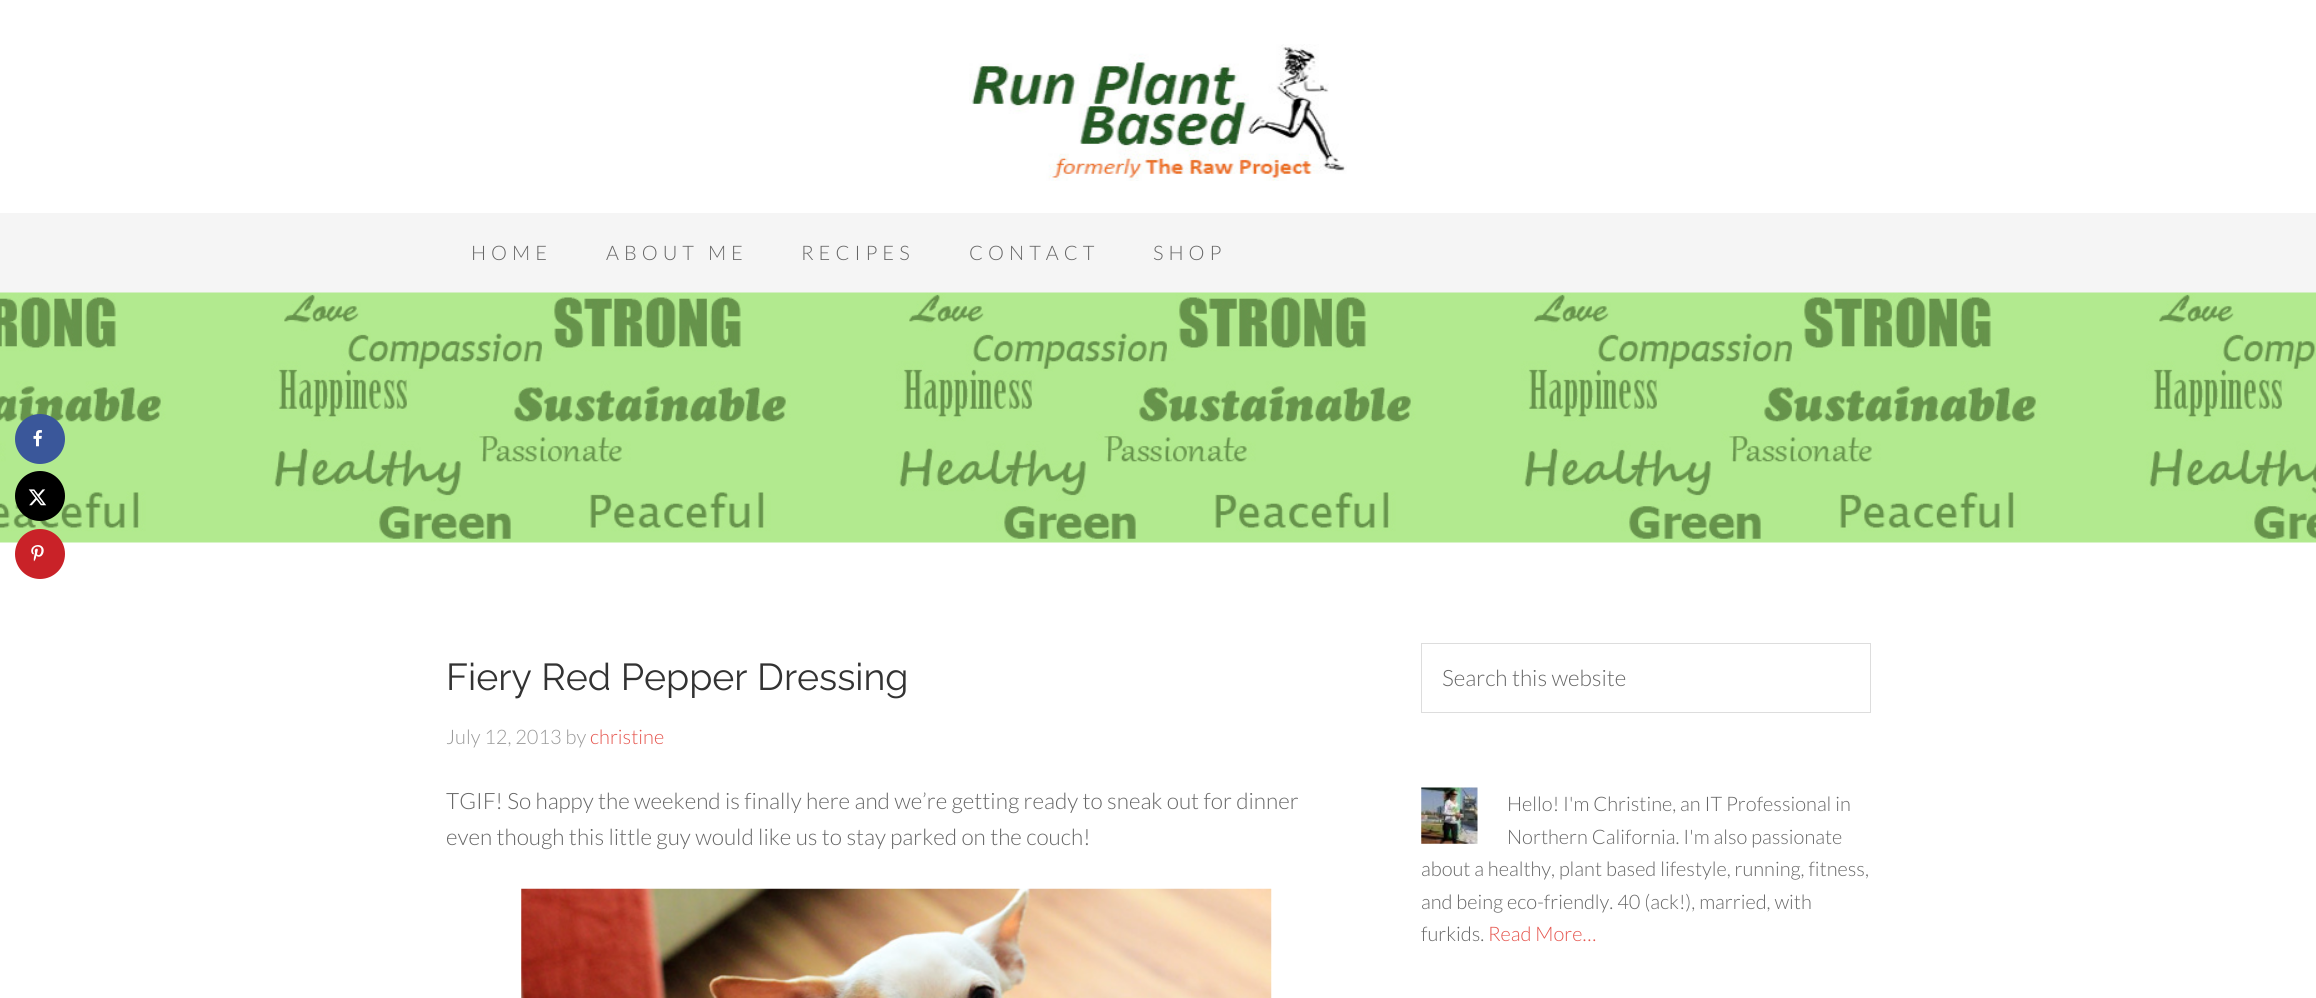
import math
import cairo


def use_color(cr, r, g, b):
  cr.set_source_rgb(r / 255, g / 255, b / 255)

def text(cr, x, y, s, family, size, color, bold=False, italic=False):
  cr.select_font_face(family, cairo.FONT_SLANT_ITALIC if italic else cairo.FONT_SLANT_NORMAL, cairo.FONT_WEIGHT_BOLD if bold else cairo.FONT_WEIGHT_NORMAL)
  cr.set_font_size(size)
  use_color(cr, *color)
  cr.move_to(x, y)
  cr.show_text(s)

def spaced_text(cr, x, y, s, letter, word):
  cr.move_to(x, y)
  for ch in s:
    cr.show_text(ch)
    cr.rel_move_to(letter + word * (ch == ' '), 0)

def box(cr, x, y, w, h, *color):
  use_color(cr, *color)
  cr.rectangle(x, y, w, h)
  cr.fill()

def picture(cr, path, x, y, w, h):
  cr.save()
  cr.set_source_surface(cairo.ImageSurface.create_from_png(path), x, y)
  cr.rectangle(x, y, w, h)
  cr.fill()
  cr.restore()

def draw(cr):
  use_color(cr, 255, 255, 255)
  cr.paint()
  box(cr, 0, 213, 2316, 80, 245, 245, 245)
  picture(cr, "img_05.png", 0, 292, 2316, 251)
  use_color(cr, 58, 87, 154)
  cr.arc(40, 439, 23.5, 0, 2 * math.pi)
  cr.fill_preserve()
  cr.set_line_width(3)
  cr.stroke()
  picture(cr, "img_01.png", 33, 430, 9, 17)
  use_color(cr, 0, 0, 0)
  cr.arc(40, 496, 23.5, 0, 2 * math.pi)
  cr.fill_preserve()
  cr.stroke()
  picture(cr, "img_02.png", 28, 489, 19, 17)
  use_color(cr, 201, 34, 40)
  cr.arc(40, 554, 23.5, 0, 2 * math.pi)
  cr.fill_preserve()
  cr.stroke()
  picture(cr, "img_03.png", 31, 545, 13, 17)
  picture(cr, "img_04.png", 969, 44, 378, 137)
  picture(cr, "img_06.png", 521, 888, 751, 110)
  cr.rectangle(1421.5, 643.5, 449, 69)
  use_color(cr, 221, 221, 221)
  cr.set_line_width(1)
  cr.stroke()
  picture(cr, "img_07.png", 1421, 787, 57, 57)
  cr.select_font_face("Lato Light")
  cr.set_font_size(20)
  use_color(cr, 102, 102, 102)
  spaced_text(cr, 471, 260, "HOME", 5, 0)
  spaced_text(cr, 606, 260, "ABOUT ME", 5, 0)
  spaced_text(cr, 801, 260, "RECIPES", 5, 0)
  spaced_text(cr, 969, 260, "CONTACT", 5, 0)
  spaced_text(cr, 1153, 260, "SHOP", 5, 0)
  text(cr, 446, 690, "Fiery Red Pepper Dressing", "Raleway", 37.5, (51, 51, 51))
  text(cr, 446, 744, "July 12, 2013 by", "Lato Light", 20, (153, 153, 153))
  text(cr, 590, 744, "christine", "Lato Light", 20, (229, 85, 78))
  text(cr, 446, 809, "TGIF! So happy the weekend is finally here and we’re getting ready to sneak out for dinner", "Lato Light", 22.5, (102, 102, 102))
  text(cr, 446, 845, "even though this little guy would like us to stay parked on the couch!", "Lato Light", 22.5, (102, 102, 102))
  text(cr, 1442, 686, "Search this website", "Lato Light", 22.5, (102, 102, 102))
  text(cr, 1507, 811, "Hello! I'm Christine, an IT Professional in", "Lato Light", 20, (102, 102, 102))
  text(cr, 1507, 844, "Northern California. I'm also passionate", "Lato Light", 20, (102, 102, 102))
  text(cr, 1421, 876, "about a healthy, plant based lifestyle, running, fitness,", "Lato Light", 20, (102, 102, 102))
  text(cr, 1421, 909, "and being eco-friendly. 40 (ack!), married, with", "Lato Light", 20, (102, 102, 102))
  text(cr, 1421, 941, "furkids.", "Lato Light", 20, (102, 102, 102))
  text(cr, 1488, 941, "Read More…", "Lato Light", 20, (229, 85, 78))


surface = cairo.ImageSurface(cairo.FORMAT_RGB24, 2316, 998)
cr = cairo.Context(surface)
options = cairo.FontOptions()
options.set_hint_metrics(cairo.HINT_METRICS_OFF)
options.set_hint_style(cairo.HINT_STYLE_NONE)
cr.set_font_options(options)
cr.set_miter_limit(4)
draw(cr)
surface.write_to_png("out.png")
